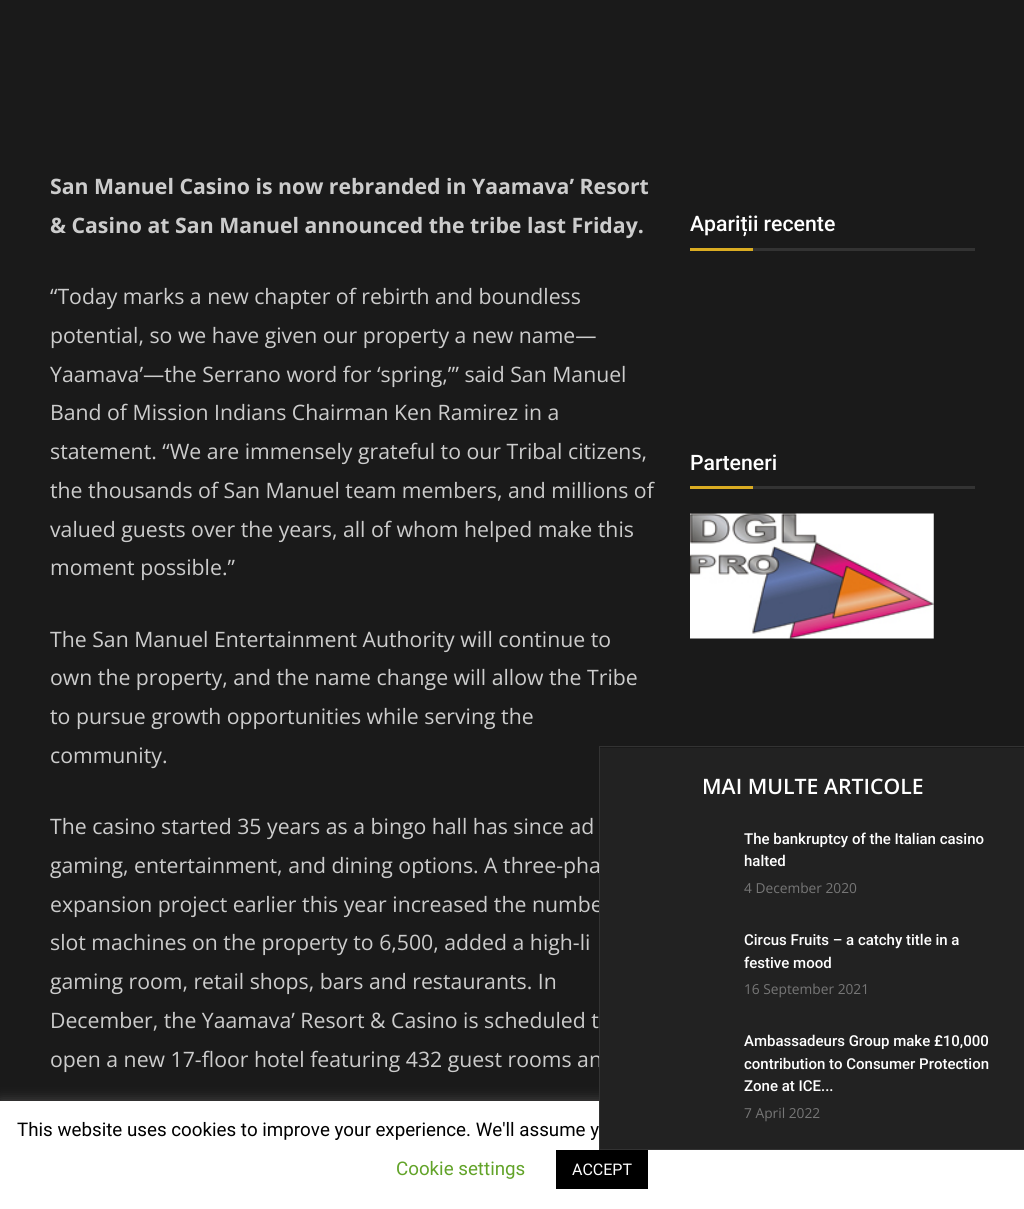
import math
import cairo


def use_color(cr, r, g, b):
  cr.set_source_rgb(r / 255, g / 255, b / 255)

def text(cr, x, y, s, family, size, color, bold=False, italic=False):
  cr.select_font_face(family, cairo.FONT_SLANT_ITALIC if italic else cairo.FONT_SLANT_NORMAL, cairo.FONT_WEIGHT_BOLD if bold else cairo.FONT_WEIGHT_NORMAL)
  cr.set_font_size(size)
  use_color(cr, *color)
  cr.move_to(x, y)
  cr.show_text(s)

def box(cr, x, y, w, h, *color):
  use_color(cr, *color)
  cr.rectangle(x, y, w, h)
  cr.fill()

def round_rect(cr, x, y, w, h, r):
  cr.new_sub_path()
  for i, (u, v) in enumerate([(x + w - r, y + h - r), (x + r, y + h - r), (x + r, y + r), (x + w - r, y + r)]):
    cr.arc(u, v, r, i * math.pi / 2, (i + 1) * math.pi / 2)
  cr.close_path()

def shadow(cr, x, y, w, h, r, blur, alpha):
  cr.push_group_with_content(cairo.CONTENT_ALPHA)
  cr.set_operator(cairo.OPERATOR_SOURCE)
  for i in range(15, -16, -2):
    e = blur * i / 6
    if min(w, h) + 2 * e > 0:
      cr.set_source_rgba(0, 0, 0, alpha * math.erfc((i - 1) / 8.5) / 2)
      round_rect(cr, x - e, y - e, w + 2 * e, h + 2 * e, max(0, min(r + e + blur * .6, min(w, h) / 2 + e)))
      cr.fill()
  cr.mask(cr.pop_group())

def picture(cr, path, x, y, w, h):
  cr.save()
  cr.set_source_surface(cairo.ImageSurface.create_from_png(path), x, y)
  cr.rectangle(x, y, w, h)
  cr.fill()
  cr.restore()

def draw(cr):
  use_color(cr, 26, 26, 26)
  cr.paint()
  box(cr, 690, 248, 63, 3, 218, 172, 34)
  box(cr, 753, 248, 222, 3, 51, 51, 51)
  box(cr, 690, 486, 63, 3, 218, 172, 34)
  box(cr, 753, 486, 222, 3, 51, 51, 51)
  picture(cr, "img_01.png", 690, 513, 244, 126)
  box(cr, 599, 746, 425, 1, 51, 51, 51)
  use_color(cr, 172, 171, 171)
  shadow(cr, 0, 1100, 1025, 109, 0, 6, 0.3)
  box(cr, 0, 1101, 1024, 108, 255, 255, 255)
  box(cr, 599, 1149, 425, 1, 51, 51, 51)
  box(cr, 556, 1150, 92, 39, 0, 0, 0)
  text(cr, 50, 194, "San Manuel Casino is now rebranded in Yaamava’ Resort", "Open Sans", 21.25, (204, 204, 204), bold=True)
  text(cr, 50, 233, "& Casino at San Manuel announced the tribe last Friday.", "Open Sans", 21.25, (204, 204, 204), bold=True)
  text(cr, 50, 304, "“Today marks a new chapter of rebirth and boundless", "Open Sans", 21.25, (204, 204, 204))
  text(cr, 50, 343, "potential, so we have given our property a new name—", "Open Sans", 21.25, (204, 204, 204))
  text(cr, 50, 382, "Yaamava’—the Serrano word for ‘spring,’” said San Manuel", "Open Sans", 21.25, (204, 204, 204))
  text(cr, 50, 420, "Band of Mission Indians Chairman Ken Ramirez in a", "Open Sans", 21.25, (204, 204, 204))
  text(cr, 50, 459, "statement. “We are immensely grateful to our Tribal citizens,", "Open Sans", 21.25, (204, 204, 204))
  text(cr, 50, 498, "the thousands of San Manuel team members, and millions of", "Open Sans", 21.25, (204, 204, 204))
  text(cr, 50, 537, "valued guests over the years, all of whom helped make this", "Open Sans", 21.25, (204, 204, 204))
  text(cr, 50, 575, "moment possible.”", "Open Sans", 21.25, (204, 204, 204))
  text(cr, 50, 647, "The San Manuel Entertainment Authority will continue to", "Open Sans", 21.25, (204, 204, 204))
  text(cr, 50, 685, "own the property, and the name change will allow the Tribe", "Open Sans", 21.25, (204, 204, 204))
  text(cr, 50, 724, "to pursue growth opportunities while serving the", "Open Sans", 21.25, (204, 204, 204))
  text(cr, 50, 763, "community.", "Open Sans", 21.25, (204, 204, 204))
  text(cr, 50, 834, "The casino started 35 years as a bingo hall has since ad", "Open Sans", 21.25, (204, 204, 204))
  text(cr, 50, 873, "gaming, entertainment, and dining options. A three-pha", "Open Sans", 21.25, (204, 204, 204))
  text(cr, 50, 912, "expansion project earlier this year increased the numbe", "Open Sans", 21.25, (204, 204, 204))
  text(cr, 50, 950, "slot machines on the property to 6,500, added a high-li", "Open Sans", 21.25, (204, 204, 204))
  text(cr, 50, 989, "gaming room, retail shops, bars and restaurants. In", "Open Sans", 21.25, (204, 204, 204))
  text(cr, 50, 1028, "December, the Yaamava’ Resort & Casino is scheduled t", "Open Sans", 21.25, (204, 204, 204))
  text(cr, 50, 1067, "open a new 17-floor hotel featuring 432 guest rooms an", "Open Sans", 21.25, (204, 204, 204))
  text(cr, 690, 231, "Apariții recente", "Roboto Medium", 21.25, (255, 255, 255))
  text(cr, 690, 470, "Parteneri", "Roboto Medium", 21.25, (255, 255, 255))
  box(cr, 600, 748, 424, 401, 34, 34, 34)
  text(cr, 702, 794, "MAI MULTE ARTICOLE", "Open Sans SemiBold", 21.25, (255, 255, 255))
  text(cr, 744, 844, "The bankruptcy of the Italian casino", "Roboto Medium", 15, (255, 255, 255))
  text(cr, 744, 866, "halted", "Roboto Medium", 15, (255, 255, 255))
  text(cr, 744, 893, "4 December 2020", "Open Sans", 13.75, (118, 118, 118))
  text(cr, 744, 945, "Circus Fruits – a catchy title in a", "Roboto Medium", 15, (255, 255, 255))
  text(cr, 744, 968, "festive mood", "Roboto Medium", 15, (255, 255, 255))
  text(cr, 744, 994, "16 September 2021", "Open Sans", 13.75, (118, 118, 118))
  text(cr, 744, 1046, "Ambassadeurs Group make £10,000", "Roboto Medium", 15, (255, 255, 255))
  text(cr, 744, 1069, "contribution to Consumer Protection", "Roboto Medium", 15, (255, 255, 255))
  text(cr, 744, 1091, "Zone at ICE...", "Roboto Medium", 15, (255, 255, 255))
  text(cr, 744, 1118, "7 April 2022", "Open Sans", 13.75, (118, 118, 118))
  text(cr, 17, 1136, "This website uses cookies to improve your experience. We'll assume y", "Roboto", 18.75, (0, 0, 0))
  box(cr, 599, 746, 1, 404, 51, 51, 51)
  text(cr, 396, 1175, "Cookie settings", "Roboto", 18.75, (98, 163, 41))
  text(cr, 572, 1175, "ACCEPT", "Roboto", 16, (255, 255, 255))


surface = cairo.ImageSurface(cairo.FORMAT_RGB24, 1024, 1209)
cr = cairo.Context(surface)
options = cairo.FontOptions()
options.set_hint_metrics(cairo.HINT_METRICS_OFF)
options.set_hint_style(cairo.HINT_STYLE_NONE)
cr.set_font_options(options)
cr.set_miter_limit(4)
draw(cr)
surface.write_to_png("out.png")
